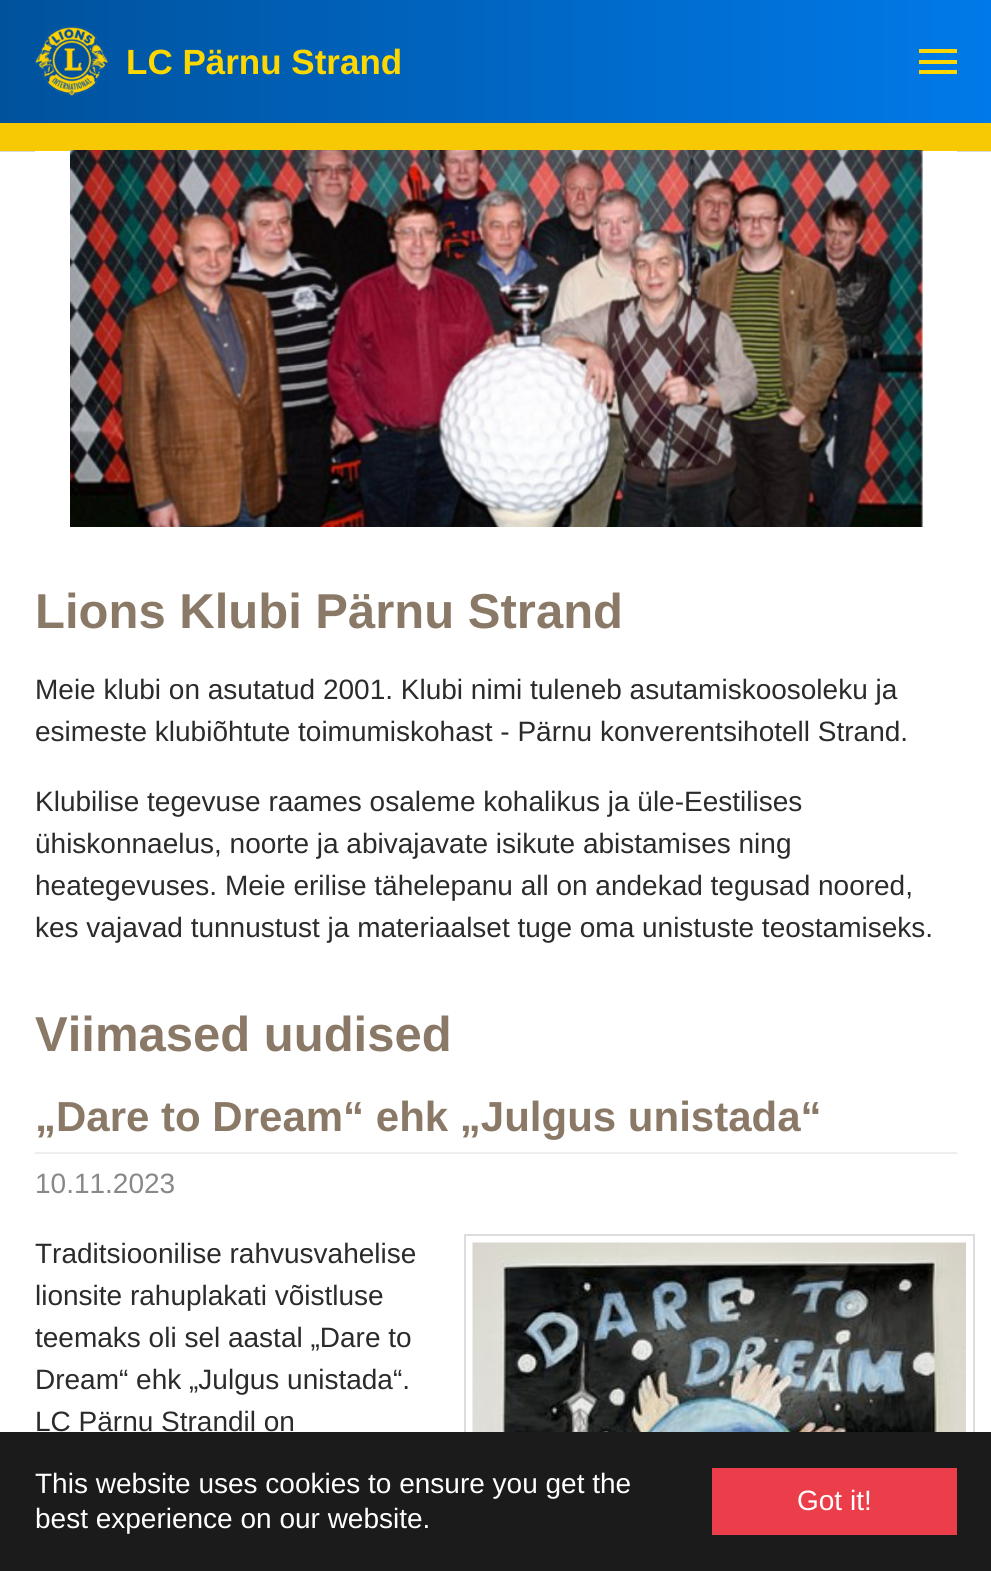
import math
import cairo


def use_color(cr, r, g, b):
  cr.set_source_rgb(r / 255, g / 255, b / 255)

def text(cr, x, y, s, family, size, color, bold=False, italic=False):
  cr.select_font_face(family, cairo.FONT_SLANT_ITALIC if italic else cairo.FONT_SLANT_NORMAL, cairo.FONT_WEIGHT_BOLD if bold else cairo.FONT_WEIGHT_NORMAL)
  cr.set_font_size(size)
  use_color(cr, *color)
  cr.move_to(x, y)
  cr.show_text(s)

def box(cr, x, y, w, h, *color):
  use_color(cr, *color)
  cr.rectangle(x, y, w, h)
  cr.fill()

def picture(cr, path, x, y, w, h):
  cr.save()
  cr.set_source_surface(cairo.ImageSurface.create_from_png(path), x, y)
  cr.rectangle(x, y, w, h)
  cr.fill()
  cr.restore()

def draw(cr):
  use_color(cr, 255, 255, 255)
  cr.paint()
  box(cr, 0, 151, 991, 1, 217, 217, 217)
  gradient = cairo.LinearGradient(0, 61, 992, 61)
  gradient.add_color_stop_rgba(0, 0, 0.322, 0.612, 1)
  gradient.add_color_stop_rgba(1, 0, 0.478, 0.914, 1)
  cr.set_source(gradient)
  cr.rectangle(0, 0, 991, 123)
  cr.fill()
  box(cr, 0, 123, 991, 28, 247, 200, 4)
  picture(cr, "img_01.png", 35, 26, 74, 70)
  box(cr, 919, 60, 38, 4, 255, 215, 0)
  box(cr, 919, 49, 38, 4, 255, 215, 0)
  box(cr, 919, 70, 38, 4, 255, 215, 0)
  box(cr, 35, 151, 922, 1, 255, 255, 255)
  picture(cr, "img_02.png", 70, 150, 853, 377)
  box(cr, 35, 1152, 922, 2, 238, 238, 238)
  cr.rectangle(465, 1235, 509, 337)
  use_color(cr, 221, 221, 221)
  cr.stroke()
  picture(cr, "img_03.png", 472, 1242, 494, 190)
  box(cr, 0, 1432, 991, 139, 27, 27, 27)
  box(cr, 712, 1468, 245, 67, 235, 62, 74)
  text(cr, 126, 74, "LC Pärnu Strand", "Liberation Sans", 35, (255, 215, 0), bold=True)
  text(cr, 35, 628, "Lions Klubi Pärnu Strand", "Liberation Sans", 49, (139, 121, 103), bold=True)
  text(cr, 35, 699, "Meie klubi on asutatud 2001. Klubi nimi tuleneb asutamiskoosoleku ja", "Liberation Sans", 28, (43, 43, 43))
  text(cr, 35, 741, "esimeste klubiõhtute toimumiskohast - Pärnu konverentsihotell Strand.", "Liberation Sans", 28, (43, 43, 43))
  text(cr, 35, 811, "Klubilise tegevuse raames osaleme kohalikus ja üle-Eestilises", "Liberation Sans", 28, (43, 43, 43))
  text(cr, 35, 853, "ühiskonnaelus, noorte ja abivajavate isikute abistamises ning", "Liberation Sans", 28, (43, 43, 43))
  text(cr, 35, 895, "heategevuses. Meie erilise tähelepanu all on andekad tegusad noored,", "Liberation Sans", 28, (43, 43, 43))
  text(cr, 35, 937, "kes vajavad tunnustust ja materiaalset tuge oma unistuste teostamiseks.", "Liberation Sans", 28, (43, 43, 43))
  text(cr, 35, 1051, "Viimased uudised", "Liberation Sans", 49, (139, 121, 103), bold=True)
  text(cr, 35, 1131, "„Dare to Dream“ ehk „Julgus unistada“", "Liberation Sans", 42, (139, 121, 103), bold=True)
  text(cr, 35, 1193, "10.11.2023", "Liberation Sans", 28, (136, 136, 136))
  text(cr, 35, 1263, "Traditsioonilise rahvusvahelise", "Liberation Sans", 28, (43, 43, 43))
  text(cr, 35, 1305, "lionsite rahuplakati võistluse", "Liberation Sans", 28, (43, 43, 43))
  text(cr, 35, 1347, "teemaks oli sel aastal „Dare to", "Liberation Sans", 28, (43, 43, 43))
  text(cr, 35, 1389, "Dream“ ehk „Julgus unistada“.", "Liberation Sans", 28, (43, 43, 43))
  text(cr, 35, 1431, "LC Pärnu Strandil on", "Liberation Sans", 28, (43, 43, 43))
  text(cr, 35, 1493, "This website uses cookies to ensure you get the", "Liberation Sans", 28, (255, 255, 255))
  text(cr, 35, 1528, "best experience on our website.", "Liberation Sans", 28, (255, 255, 255))
  text(cr, 797, 1510, "Got it!", "Liberation Sans", 28, (255, 255, 255))


surface = cairo.ImageSurface(cairo.FORMAT_RGB24, 991, 1571)
cr = cairo.Context(surface)
options = cairo.FontOptions()
options.set_hint_metrics(cairo.HINT_METRICS_OFF)
options.set_hint_style(cairo.HINT_STYLE_NONE)
cr.set_font_options(options)
cr.set_miter_limit(4)
draw(cr)
surface.write_to_png("out.png")
